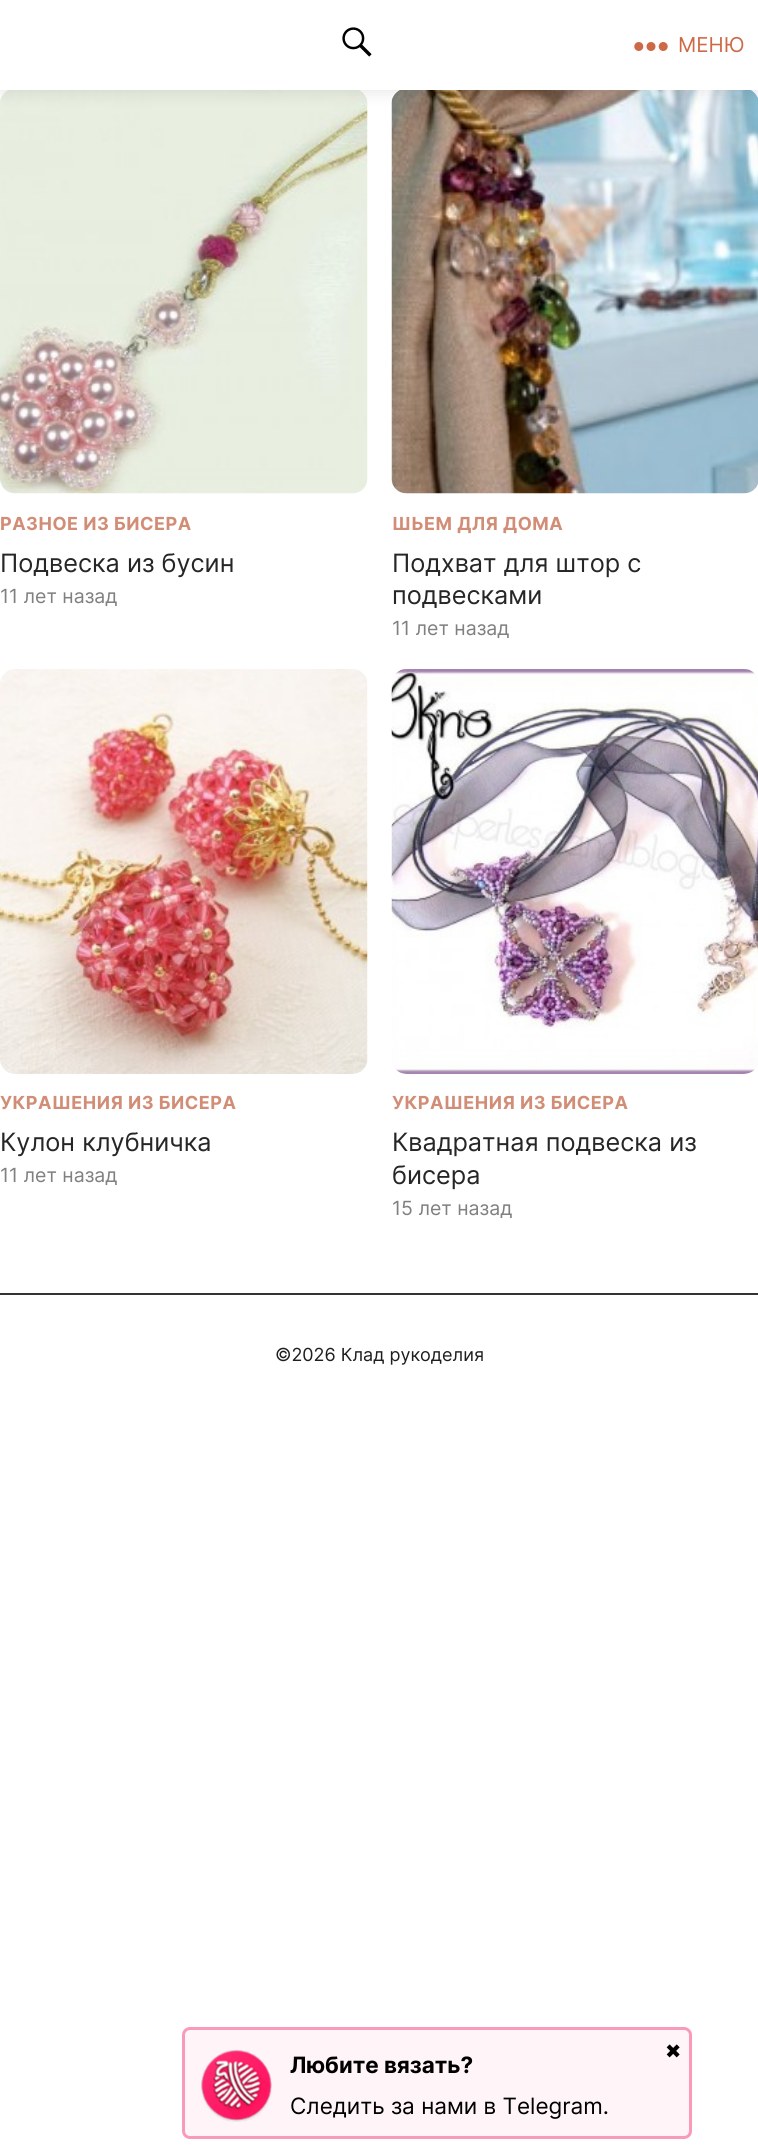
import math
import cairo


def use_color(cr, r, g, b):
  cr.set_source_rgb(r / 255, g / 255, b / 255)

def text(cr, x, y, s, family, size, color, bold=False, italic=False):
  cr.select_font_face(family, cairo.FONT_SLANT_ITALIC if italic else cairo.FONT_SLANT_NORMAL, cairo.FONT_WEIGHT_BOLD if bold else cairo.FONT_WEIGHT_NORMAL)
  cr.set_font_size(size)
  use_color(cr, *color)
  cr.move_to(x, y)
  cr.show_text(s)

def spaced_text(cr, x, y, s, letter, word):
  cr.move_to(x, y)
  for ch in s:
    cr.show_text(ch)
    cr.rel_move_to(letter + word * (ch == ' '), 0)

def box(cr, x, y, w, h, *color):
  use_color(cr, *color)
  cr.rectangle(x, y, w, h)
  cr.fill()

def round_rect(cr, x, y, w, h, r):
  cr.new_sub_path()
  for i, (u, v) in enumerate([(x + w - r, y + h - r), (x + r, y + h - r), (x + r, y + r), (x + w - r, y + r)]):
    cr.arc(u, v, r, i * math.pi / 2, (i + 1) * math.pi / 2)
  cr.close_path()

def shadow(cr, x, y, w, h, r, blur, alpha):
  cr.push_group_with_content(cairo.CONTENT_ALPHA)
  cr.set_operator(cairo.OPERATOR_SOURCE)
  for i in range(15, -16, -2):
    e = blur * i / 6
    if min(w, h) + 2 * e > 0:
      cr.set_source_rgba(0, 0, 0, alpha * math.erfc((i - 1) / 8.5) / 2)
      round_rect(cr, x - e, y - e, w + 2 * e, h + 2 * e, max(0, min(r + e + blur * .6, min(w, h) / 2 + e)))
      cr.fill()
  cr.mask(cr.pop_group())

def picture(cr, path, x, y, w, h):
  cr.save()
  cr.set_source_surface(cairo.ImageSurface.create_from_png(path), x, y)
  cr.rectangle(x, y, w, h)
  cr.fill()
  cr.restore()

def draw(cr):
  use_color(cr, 255, 255, 255)
  cr.paint()
  picture(cr, "img_03.png", 0, 90, 368, 404)
  picture(cr, "img_04.png", 391, 90, 367, 404)
  use_color(cr, 0, 0, 0)
  shadow(cr, 0, 2, 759, 90, 0, 7.5, 0.1)
  box(cr, 0, 0, 758, 90, 255, 255, 255)
  picture(cr, "img_01.png", 342, 27, 30, 30)
  picture(cr, "img_02.png", 634, 42, 34, 9)
  picture(cr, "img_05.png", 0, 669, 368, 405)
  picture(cr, "img_06.png", 391, 669, 367, 405)
  box(cr, 0, 1293, 758, 2, 51, 51, 51)
  use_color(cr, 255, 245, 248)
  round_rect(cr, 183.5, 2028.5, 507, 109, 6.5)
  cr.fill_preserve()
  use_color(cr, 250, 154, 185)
  cr.set_line_width(3)
  cr.stroke()
  picture(cr, "img_07.png", 201, 2050, 71, 72)
  text(cr, 678, 52, "МЕНЮ", "Inter", 20.5, (206, 105, 71))
  cr.select_font_face("Inter", cairo.FONT_SLANT_NORMAL, cairo.FONT_WEIGHT_BOLD)
  cr.set_font_size(18)
  use_color(cr, 209, 141, 118)
  spaced_text(cr, 0, 530, "РАЗНОЕ ИЗ БИСЕРА", 0.5, 0)
  text(cr, 0, 572, "Подвеска из бусин", "Inter", 25.25, (38, 38, 38))
  text(cr, 0, 603, "11 лет назад", "Inter", 19.5, (128, 128, 128))
  cr.select_font_face("Inter", cairo.FONT_SLANT_NORMAL, cairo.FONT_WEIGHT_BOLD)
  cr.set_font_size(18)
  use_color(cr, 209, 141, 118)
  spaced_text(cr, 392, 530, "ШЬЕМ ДЛЯ ДОМА", 0.5, 0)
  text(cr, 392, 572, "Подхват для штор с", "Inter", 25.25, (38, 38, 38))
  text(cr, 392, 604, "подвесками", "Inter", 25.25, (38, 38, 38))
  text(cr, 392, 635, "11 лет назад", "Inter", 19.5, (128, 128, 128))
  cr.select_font_face("Inter", cairo.FONT_SLANT_NORMAL, cairo.FONT_WEIGHT_BOLD)
  cr.set_font_size(18)
  use_color(cr, 209, 141, 118)
  spaced_text(cr, 0, 1109, "УКРАШЕНИЯ ИЗ БИСЕРА", 0.5, 0)
  text(cr, 0, 1151, "Кулон клубничка", "Inter", 25.25, (38, 38, 38))
  text(cr, 0, 1182, "11 лет назад", "Inter", 19.5, (128, 128, 128))
  cr.select_font_face("Inter", cairo.FONT_SLANT_NORMAL, cairo.FONT_WEIGHT_BOLD)
  cr.set_font_size(18)
  use_color(cr, 209, 141, 118)
  spaced_text(cr, 392, 1109, "УКРАШЕНИЯ ИЗ БИСЕРА", 0.5, 0)
  text(cr, 392, 1151, "Квадратная подвеска из", "Inter", 25.25, (38, 38, 38))
  text(cr, 392, 1184, "бисера", "Inter", 25.25, (38, 38, 38))
  text(cr, 392, 1215, "15 лет назад", "Inter", 19.5, (128, 128, 128))
  text(cr, 275, 1361, "©2026 Клад рукоделия", "Inter", 18, (30, 30, 30))
  text(cr, 665, 2058, "✖", "DejaVu Sans", 19.5, (0, 0, 0))
  text(cr, 290, 2073, "Любите вязать?", "Inter", 22.5, (0, 0, 0), bold=True)
  text(cr, 290, 2114, "Cледить за нами в Telegram.", "Inter", 22.5, (0, 0, 0))


surface = cairo.ImageSurface(cairo.FORMAT_RGB24, 758, 2156)
cr = cairo.Context(surface)
options = cairo.FontOptions()
options.set_hint_metrics(cairo.HINT_METRICS_OFF)
options.set_hint_style(cairo.HINT_STYLE_NONE)
cr.set_font_options(options)
cr.set_miter_limit(4)
draw(cr)
surface.write_to_png("out.png")
